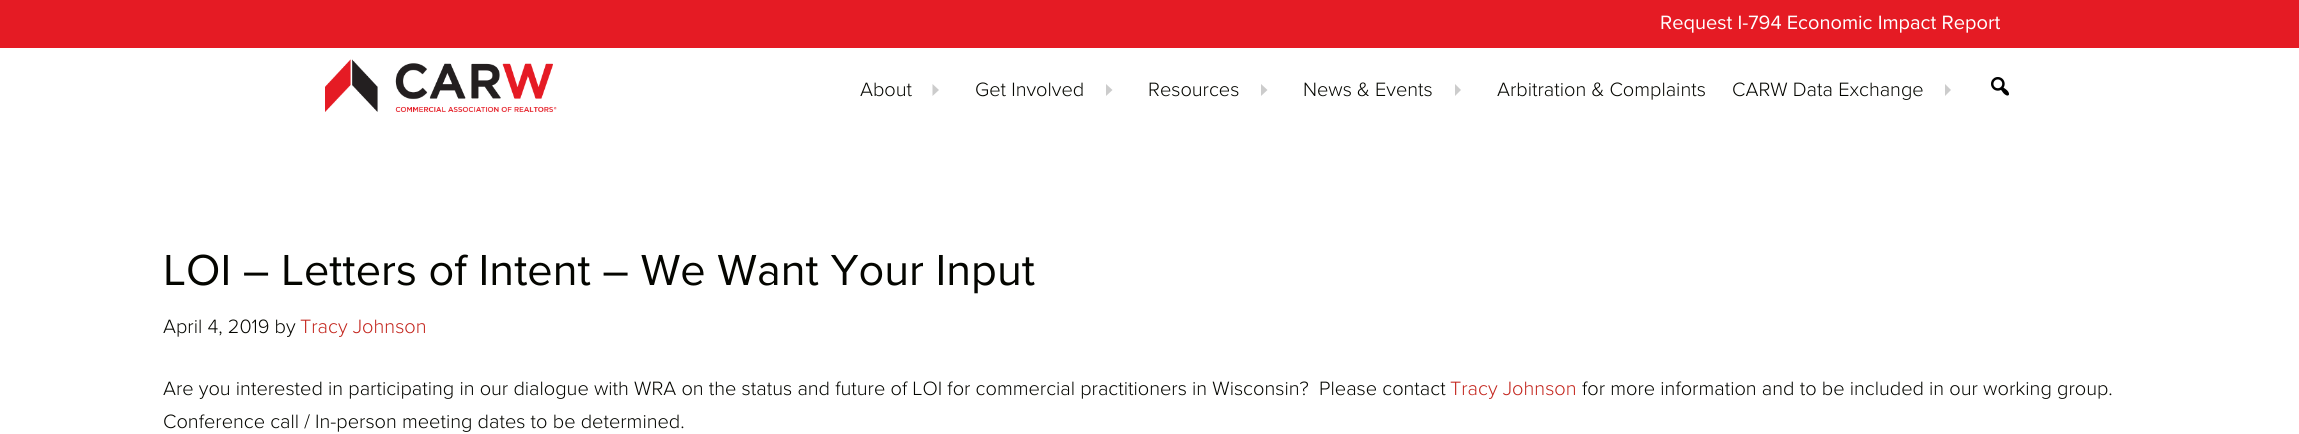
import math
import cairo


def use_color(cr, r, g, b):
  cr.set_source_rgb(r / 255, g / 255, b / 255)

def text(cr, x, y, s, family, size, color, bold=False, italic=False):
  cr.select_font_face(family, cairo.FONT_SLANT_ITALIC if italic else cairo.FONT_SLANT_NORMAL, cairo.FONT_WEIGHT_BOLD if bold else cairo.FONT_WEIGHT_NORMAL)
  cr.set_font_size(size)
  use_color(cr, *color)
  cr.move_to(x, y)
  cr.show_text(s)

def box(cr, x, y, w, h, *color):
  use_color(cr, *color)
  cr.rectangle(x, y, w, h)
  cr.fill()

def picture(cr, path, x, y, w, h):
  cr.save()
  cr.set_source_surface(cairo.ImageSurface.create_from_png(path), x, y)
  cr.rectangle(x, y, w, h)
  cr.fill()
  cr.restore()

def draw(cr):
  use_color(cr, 255, 255, 255)
  cr.paint()
  box(cr, 0, 0, 2299, 48, 229, 27, 36)
  picture(cr, "img_01.png", 325, 59, 232, 53)
  use_color(cr, 204, 204, 204)
  cr.new_path()
  cr.move_to(932.5, 96)
  cr.line_to(932.5, 84)
  cr.line_to(939, 90)
  cr.close_path()
  cr.fill()
  cr.new_path()
  cr.move_to(1106, 96)
  cr.line_to(1106, 84)
  cr.line_to(1112.5, 90)
  cr.close_path()
  cr.fill()
  cr.new_path()
  cr.move_to(1261, 96)
  cr.line_to(1261, 84)
  cr.line_to(1267.5, 90)
  cr.close_path()
  cr.fill()
  cr.new_path()
  cr.move_to(1455, 96)
  cr.line_to(1455, 84)
  cr.line_to(1461, 90)
  cr.close_path()
  cr.fill()
  cr.new_path()
  cr.move_to(1945, 96)
  cr.line_to(1945, 84)
  cr.line_to(1951, 90)
  cr.close_path()
  cr.fill()
  picture(cr, "img_02.png", 1991, 77, 18, 19)
  text(cr, 1660, 29, "Request I-794 Economic Impact Report", "Proxima Nova", 20, (255, 255, 255))
  text(cr, 860, 96, "About", "Proxima Nova Light", 20, (4, 5, 0))
  text(cr, 975, 96, "Get Involved", "Proxima Nova Light", 20, (4, 5, 0))
  text(cr, 1148, 96, "Resources", "Proxima Nova Light", 20, (4, 5, 0))
  text(cr, 1303, 96, "News & Events", "Proxima Nova Light", 20, (4, 5, 0))
  text(cr, 1497, 96, "Arbitration & Complaints", "Proxima Nova Light", 20, (4, 5, 0))
  text(cr, 1732, 96, "CARW Data Exchange", "Proxima Nova Light", 20, (4, 5, 0))
  text(cr, 163, 285, "LOI – Letters of Intent – We Want Your Input", "Proxima Nova", 45, (4, 5, 0))
  text(cr, 163, 333, "April 4, 2019 by", "Proxima Nova Light", 20, (4, 5, 0))
  text(cr, 300, 333, "Tracy Johnson", "Proxima Nova Light", 20, (195, 37, 29))
  text(cr, 163, 395, "Are you interested in participating in our dialogue with WRA on the status and future of LOI for commercial practitioners in Wisconsin?  Please contact", "Proxima Nova Light", 20, (4, 5, 0))
  text(cr, 1450, 395, "Tracy Johnson", "Proxima Nova Light", 20, (195, 37, 29))
  text(cr, 1582, 395, "for more information and to be included in our working group.", "Proxima Nova Light", 20, (4, 5, 0))
  text(cr, 163, 428, "Conference call / In-person meeting dates to be determined.", "Proxima Nova Light", 20, (4, 5, 0))


surface = cairo.ImageSurface(cairo.FORMAT_RGB24, 2299, 434)
cr = cairo.Context(surface)
options = cairo.FontOptions()
options.set_hint_metrics(cairo.HINT_METRICS_OFF)
options.set_hint_style(cairo.HINT_STYLE_NONE)
cr.set_font_options(options)
cr.set_miter_limit(4)
draw(cr)
surface.write_to_png("out.png")
